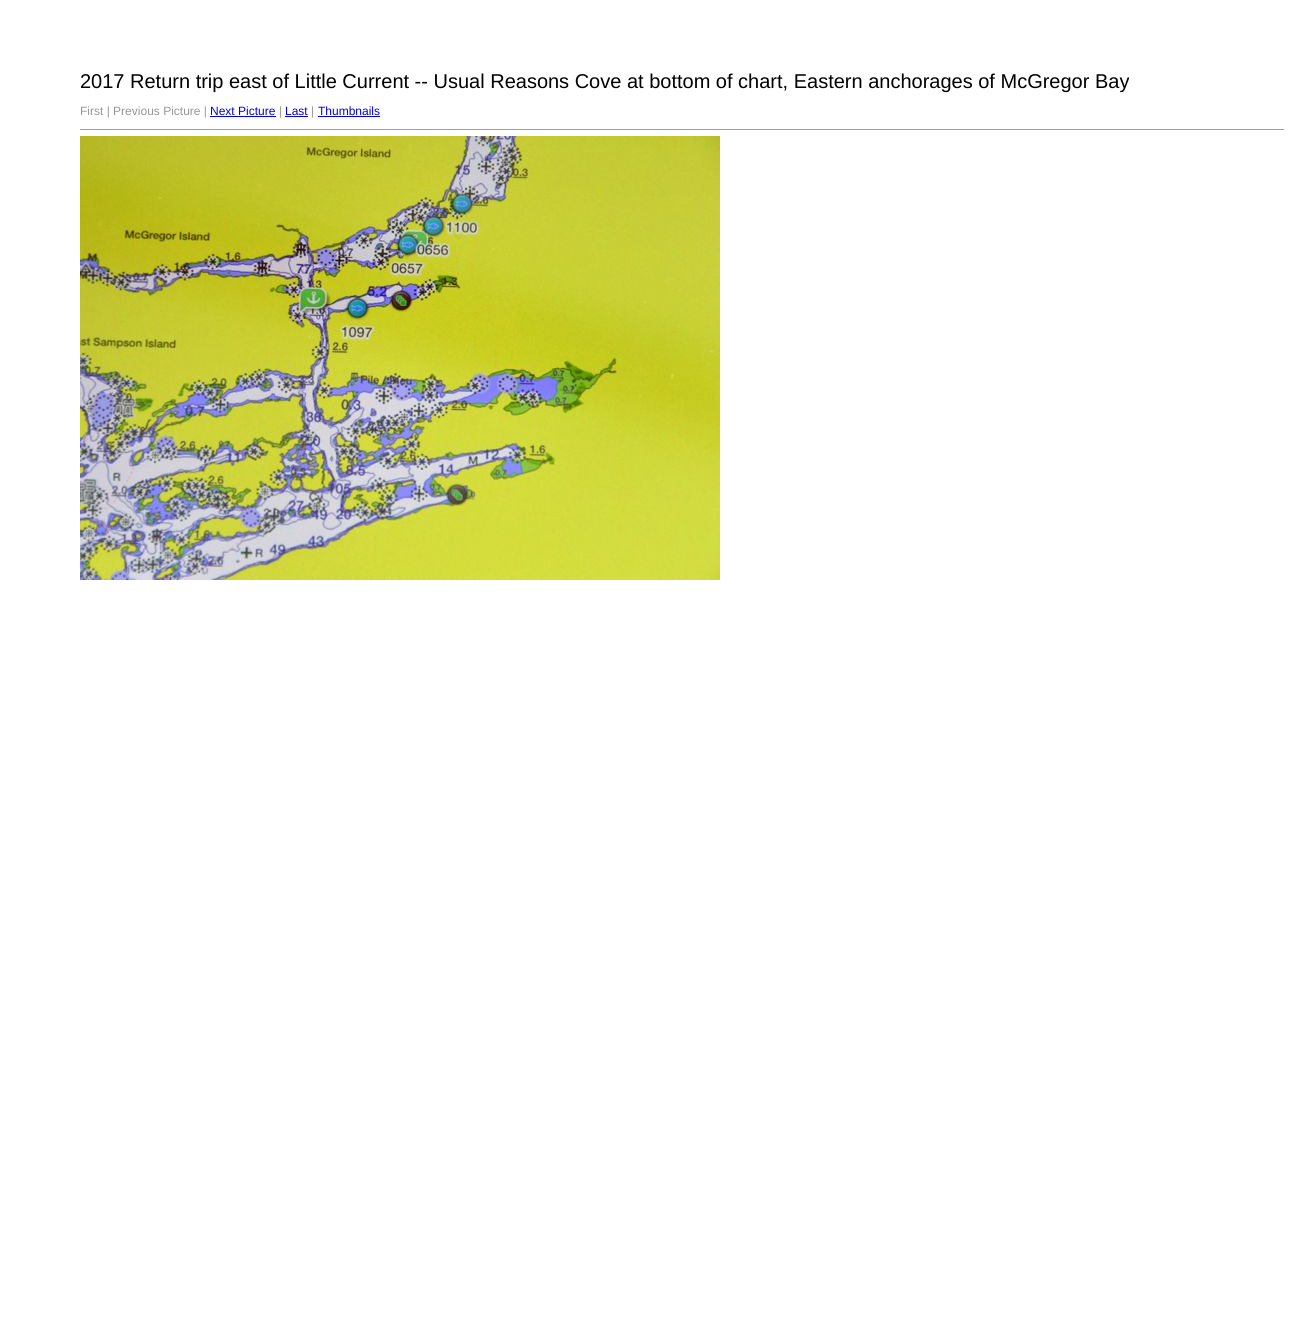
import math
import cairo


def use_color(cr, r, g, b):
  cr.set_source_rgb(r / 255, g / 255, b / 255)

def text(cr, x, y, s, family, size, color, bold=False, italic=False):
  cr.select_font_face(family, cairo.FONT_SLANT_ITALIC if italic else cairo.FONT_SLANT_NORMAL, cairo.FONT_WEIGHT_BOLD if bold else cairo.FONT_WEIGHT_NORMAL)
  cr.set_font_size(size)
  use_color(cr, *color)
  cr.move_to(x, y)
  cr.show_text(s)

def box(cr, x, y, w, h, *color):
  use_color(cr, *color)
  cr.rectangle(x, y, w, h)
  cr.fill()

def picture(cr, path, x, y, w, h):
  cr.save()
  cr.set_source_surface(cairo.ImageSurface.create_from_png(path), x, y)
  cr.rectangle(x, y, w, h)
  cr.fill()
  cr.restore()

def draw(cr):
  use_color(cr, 255, 255, 255)
  cr.paint()
  box(cr, 210, 116, 66, 1, 0, 0, 238)
  box(cr, 285, 116, 23, 1, 0, 0, 238)
  box(cr, 318, 116, 62, 1, 0, 0, 238)
  box(cr, 80, 129, 1205, 1, 159, 159, 159)
  box(cr, 1284, 129, 1, 1, 238, 238, 238)
  picture(cr, "img_01.png", 80, 136, 640, 444)
  text(cr, 80, 88, "2017 Return trip east of Little Current -- Usual Reasons Cove at bottom of chart, Eastern anchorages of McGregor Bay", "Liberation Sans", 20, (0, 0, 0))
  text(cr, 80, 115, "First | Previous Picture |", "Liberation Sans", 12, (151, 151, 151))
  text(cr, 210, 115, "Next Picture", "Liberation Sans", 12, (0, 0, 238))
  text(cr, 279, 115, "|", "Liberation Sans", 12, (151, 151, 151))
  text(cr, 285, 115, "Last", "Liberation Sans", 12, (0, 0, 238))
  text(cr, 311, 115, "|", "Liberation Sans", 12, (151, 151, 151))
  text(cr, 318, 115, "Thumbnails", "Liberation Sans", 12, (0, 0, 238))


surface = cairo.ImageSurface(cairo.FORMAT_RGB24, 1293, 1325)
cr = cairo.Context(surface)
options = cairo.FontOptions()
options.set_hint_metrics(cairo.HINT_METRICS_OFF)
options.set_hint_style(cairo.HINT_STYLE_NONE)
cr.set_font_options(options)
cr.set_miter_limit(4)
draw(cr)
surface.write_to_png("out.png")
